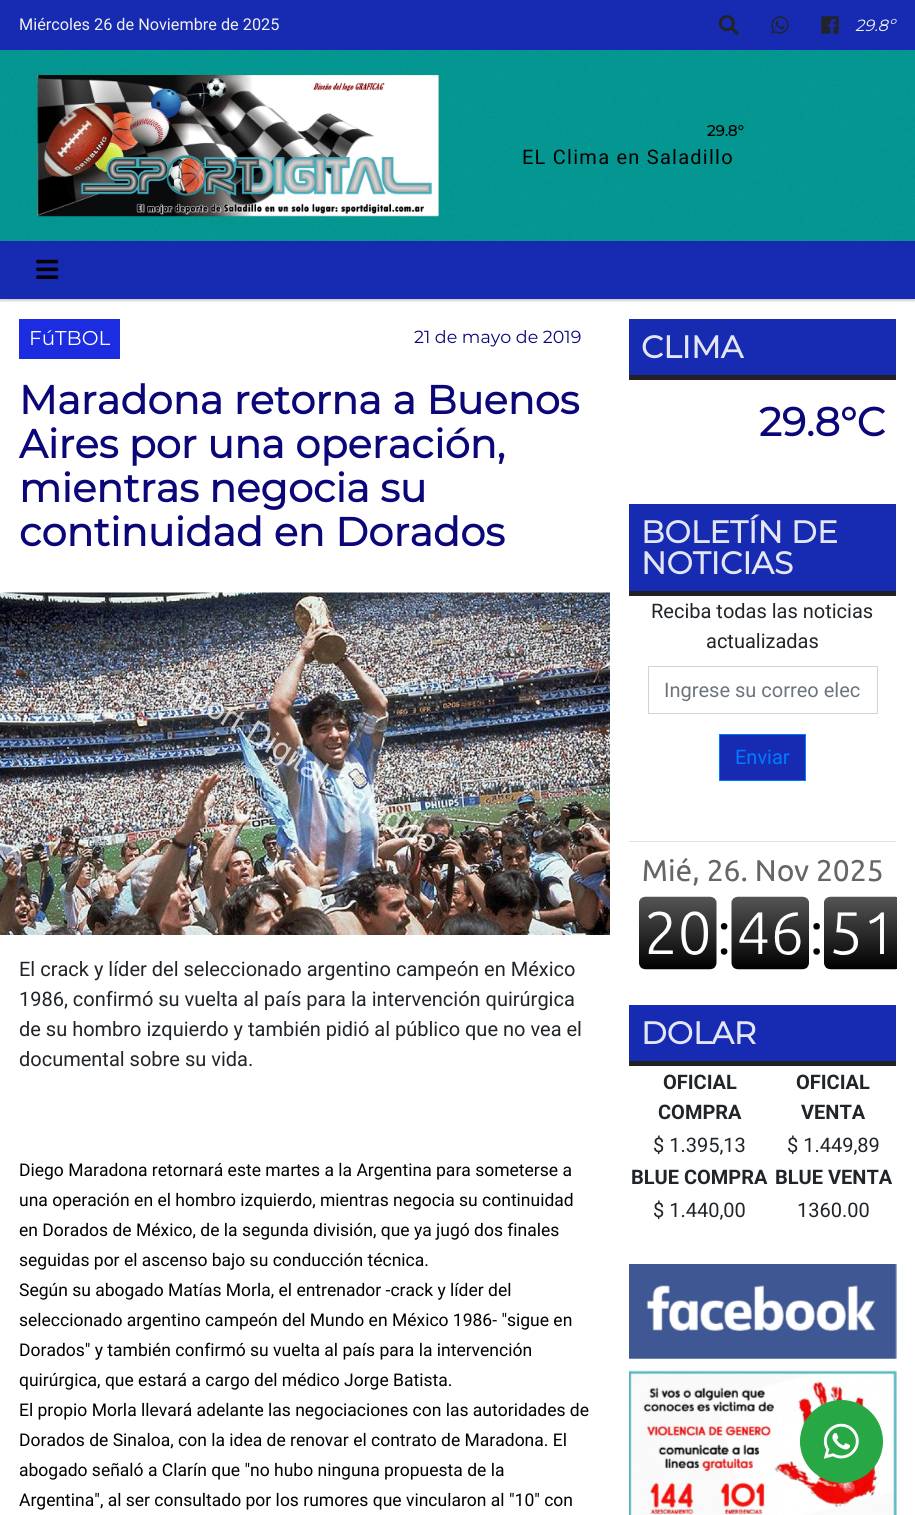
import math
import cairo


def use_color(cr, r, g, b):
  cr.set_source_rgb(r / 255, g / 255, b / 255)

def text(cr, x, y, s, family, size, color, bold=False, italic=False):
  cr.select_font_face(family, cairo.FONT_SLANT_ITALIC if italic else cairo.FONT_SLANT_NORMAL, cairo.FONT_WEIGHT_BOLD if bold else cairo.FONT_WEIGHT_NORMAL)
  cr.set_font_size(size)
  use_color(cr, *color)
  cr.move_to(x, y)
  cr.show_text(s)

def spaced_text(cr, x, y, s, letter, word):
  cr.move_to(x, y)
  for ch in s:
    cr.show_text(ch)
    cr.rel_move_to(letter + word * (ch == ' '), 0)

def box(cr, x, y, w, h, *color):
  use_color(cr, *color)
  cr.rectangle(x, y, w, h)
  cr.fill()

def round_rect(cr, x, y, w, h, r):
  cr.new_sub_path()
  for i, (u, v) in enumerate([(x + w - r, y + h - r), (x + r, y + h - r), (x + r, y + r), (x + w - r, y + r)]):
    cr.arc(u, v, r, i * math.pi / 2, (i + 1) * math.pi / 2)
  cr.close_path()

def shadow(cr, x, y, w, h, r, blur, alpha):
  cr.push_group_with_content(cairo.CONTENT_ALPHA)
  cr.set_operator(cairo.OPERATOR_SOURCE)
  for i in range(15, -16, -2):
    e = blur * i / 6
    if min(w, h) + 2 * e > 0:
      cr.set_source_rgba(0, 0, 0, alpha * math.erfc((i - 1) / 8.5) / 2)
      round_rect(cr, x - e, y - e, w + 2 * e, h + 2 * e, max(0, min(r + e + blur * .6, min(w, h) / 2 + e)))
      cr.fill()
  cr.mask(cr.pop_group())

def picture(cr, path, x, y, w, h):
  cr.save()
  cr.set_source_surface(cairo.ImageSurface.create_from_png(path), x, y)
  cr.rectangle(x, y, w, h)
  cr.fill()
  cr.restore()

def draw(cr):
  use_color(cr, 22, 43, 178)
  cr.paint()
  picture(cr, "img_01.png", 718, 15, 21, 20)
  picture(cr, "img_02.png", 771, 16, 18, 18)
  picture(cr, "img_03.png", 821, 16, 18, 18)
  picture(cr, "img_04.png", 0, 50, 915, 191)
  picture(cr, "img_05.png", 37, 75, 402, 142)
  box(cr, 0, 299, 915, 1216, 255, 255, 255)
  use_color(cr, 0, 0, 0)
  shadow(cr, 0, 244, 915, 57, 0, 1, 0.18)
  box(cr, 0, 243, 915, 56, 22, 43, 178)
  picture(cr, "img_06.png", 36, 259, 23, 20)
  box(cr, 19, 319, 101, 40, 28, 44, 225)
  picture(cr, "img_07.png", 0, 592, 610, 343)
  box(cr, 629, 319, 267, 56, 22, 43, 178)
  box(cr, 629, 375, 267, 5, 34, 34, 34)
  box(cr, 629, 504, 267, 87, 22, 43, 178)
  box(cr, 629, 591, 267, 5, 34, 34, 34)
  box(cr, 629, 841, 267, 1, 222, 226, 230)
  cr.rectangle(648.5, 666.5, 229, 47)
  use_color(cr, 206, 212, 218)
  cr.set_line_width(1)
  cr.stroke()
  use_color(cr, 22, 43, 178)
  cr.rectangle(719.5, 734.5, 86, 46)
  cr.fill_preserve()
  use_color(cr, 0, 123, 255)
  cr.stroke()
  picture(cr, "img_08.png", 639, 857, 258, 113)
  box(cr, 629, 1005, 267, 56, 22, 43, 178)
  box(cr, 629, 1061, 267, 5, 34, 34, 34)
  picture(cr, "img_09.png", 629, 1264, 268, 95)
  picture(cr, "img_10.png", 629, 1370, 268, 145)
  use_color(cr, 40, 167, 69)
  cr.arc(841.5, 1441.5, 41, 0, 2 * math.pi)
  cr.fill_preserve()
  cr.stroke()
  picture(cr, "img_11.png", 823, 1423, 36, 36)
  text(cr, 19, 30, "Miércoles 26 de Noviembre de 2025", "Roboto", 16.25, (240, 240, 240))
  text(cr, 855, 31, "29.8º", "Montserrat Thin", 16.25, (240, 240, 240), italic=True)
  text(cr, 707, 136, "29.8°", "Montserrat", 15, (6, 1, 1), bold=True)
  cr.select_font_face("Roboto")
  cr.set_font_size(20)
  spaced_text(cr, 522, 164, "EL Clima en Saladillo", 1.25, 0)
  text(cr, 29, 345, "FúTBOL", "Montserrat Thin", 20, (255, 255, 255))
  text(cr, 414, 343, "21 de mayo de 2019", "Montserrat Thin", 17.5, (11, 7, 121))
  text(cr, 19, 414, "Maradona retorna a Buenos", "Montserrat", 40, (11, 7, 121), bold=True)
  text(cr, 19, 458, "Aires por una operación,", "Montserrat", 40, (11, 7, 121), bold=True)
  text(cr, 19, 502, "mientras negocia su", "Montserrat", 40, (11, 7, 121), bold=True)
  text(cr, 19, 546, "continuidad en Dorados", "Montserrat", 40, (11, 7, 121), bold=True)
  text(cr, 19, 976, "El crack y líder del seleccionado argentino campeón en México", "Roboto", 20, (33, 37, 41))
  text(cr, 19, 1006, "1986, confirmó su vuelta al país para la intervención quirúrgica", "Roboto", 20, (33, 37, 41))
  text(cr, 19, 1036, "de su hombro izquierdo y también pidió al público que no vea el", "Roboto", 20, (33, 37, 41))
  text(cr, 19, 1066, "documental sobre su vida.", "Roboto", 20, (33, 37, 41))
  text(cr, 19, 1176, "Diego Maradona retornará este martes a la Argentina para someterse a", "Roboto", 17.5, (0, 0, 0))
  text(cr, 19, 1206, "una operación en el hombro izquierdo, mientras negocia su continuidad", "Roboto", 17.5, (0, 0, 0))
  text(cr, 19, 1236, "en Dorados de México, de la segunda división, que ya jugó dos finales", "Roboto", 17.5, (0, 0, 0))
  text(cr, 19, 1266, "seguidas por el ascenso bajo su conducción técnica.", "Roboto", 17.5, (0, 0, 0))
  text(cr, 19, 1296, "Según su abogado Matías Morla, el entrenador -crack y líder del", "Roboto", 17.5, (0, 0, 0))
  text(cr, 19, 1326, "seleccionado argentino campeón del Mundo en México 1986- \"sigue en", "Roboto", 17.5, (0, 0, 0))
  text(cr, 19, 1356, "Dorados\" y también confirmó su vuelta al país para la intervención", "Roboto", 17.5, (0, 0, 0))
  text(cr, 19, 1386, "quirúrgica, que estará a cargo del médico Jorge Batista.", "Roboto", 17.5, (0, 0, 0))
  text(cr, 19, 1416, "El propio Morla llevará adelante las negociaciones con las autoridades de", "Roboto", 17.5, (0, 0, 0))
  text(cr, 19, 1446, "Dorados de Sinaloa, con la idea de renovar el contrato de Maradona. El", "Roboto", 17.5, (0, 0, 0))
  text(cr, 19, 1476, "abogado señaló a Clarín que \"no hubo ninguna propuesta de la", "Roboto", 17.5, (0, 0, 0))
  text(cr, 19, 1506, "Argentina\", al ser consultado por los rumores que vincularon al \"10\" con", "Roboto", 17.5, (0, 0, 0))
  text(cr, 641, 358, "CLIMA", "Montserrat", 31.25, (227, 229, 243), bold=True)
  text(cr, 759, 436, "29.8°C", "Montserrat", 40, (11, 7, 121), bold=True)
  text(cr, 641, 543, "BOLETÍN DE", "Montserrat", 31.25, (227, 229, 243), bold=True)
  text(cr, 641, 574, "NOTICIAS", "Montserrat", 31.25, (227, 229, 243), bold=True)
  text(cr, 651, 618, "Reciba todas las noticias", "Roboto", 20, (33, 37, 41))
  text(cr, 706, 648, "actualizadas", "Roboto", 20, (33, 37, 41))
  text(cr, 664, 697, "Ingrese su correo elec", "Roboto", 20, (108, 117, 125))
  text(cr, 735, 764, "Enviar", "Roboto", 20, (0, 123, 255))
  text(cr, 641, 1044, "DOLAR", "Montserrat", 31.25, (227, 229, 243), bold=True)
  text(cr, 663, 1089, "OFICIAL", "Roboto", 20, (33, 37, 41), bold=True)
  text(cr, 658, 1119, "COMPRA", "Roboto", 20, (33, 37, 41), bold=True)
  text(cr, 796, 1089, "OFICIAL", "Roboto", 20, (33, 37, 41), bold=True)
  text(cr, 801, 1119, "VENTA", "Roboto", 20, (33, 37, 41), bold=True)
  text(cr, 653, 1152, "$ 1.395,13", "Roboto", 20, (33, 37, 41))
  text(cr, 787, 1152, "$ 1.449,89", "Roboto", 20, (33, 37, 41))
  text(cr, 631, 1184, "BLUE COMPRA", "Roboto", 20, (33, 37, 41), bold=True)
  text(cr, 775, 1184, "BLUE VENTA", "Roboto", 20, (33, 37, 41), bold=True)
  text(cr, 653, 1217, "$ 1.440,00", "Roboto", 20, (33, 37, 41))
  text(cr, 797, 1217, "1360.00", "Roboto", 20, (33, 37, 41))


surface = cairo.ImageSurface(cairo.FORMAT_RGB24, 915, 1515)
cr = cairo.Context(surface)
options = cairo.FontOptions()
options.set_hint_metrics(cairo.HINT_METRICS_OFF)
options.set_hint_style(cairo.HINT_STYLE_NONE)
cr.set_font_options(options)
cr.set_miter_limit(4)
draw(cr)
surface.write_to_png("out.png")
